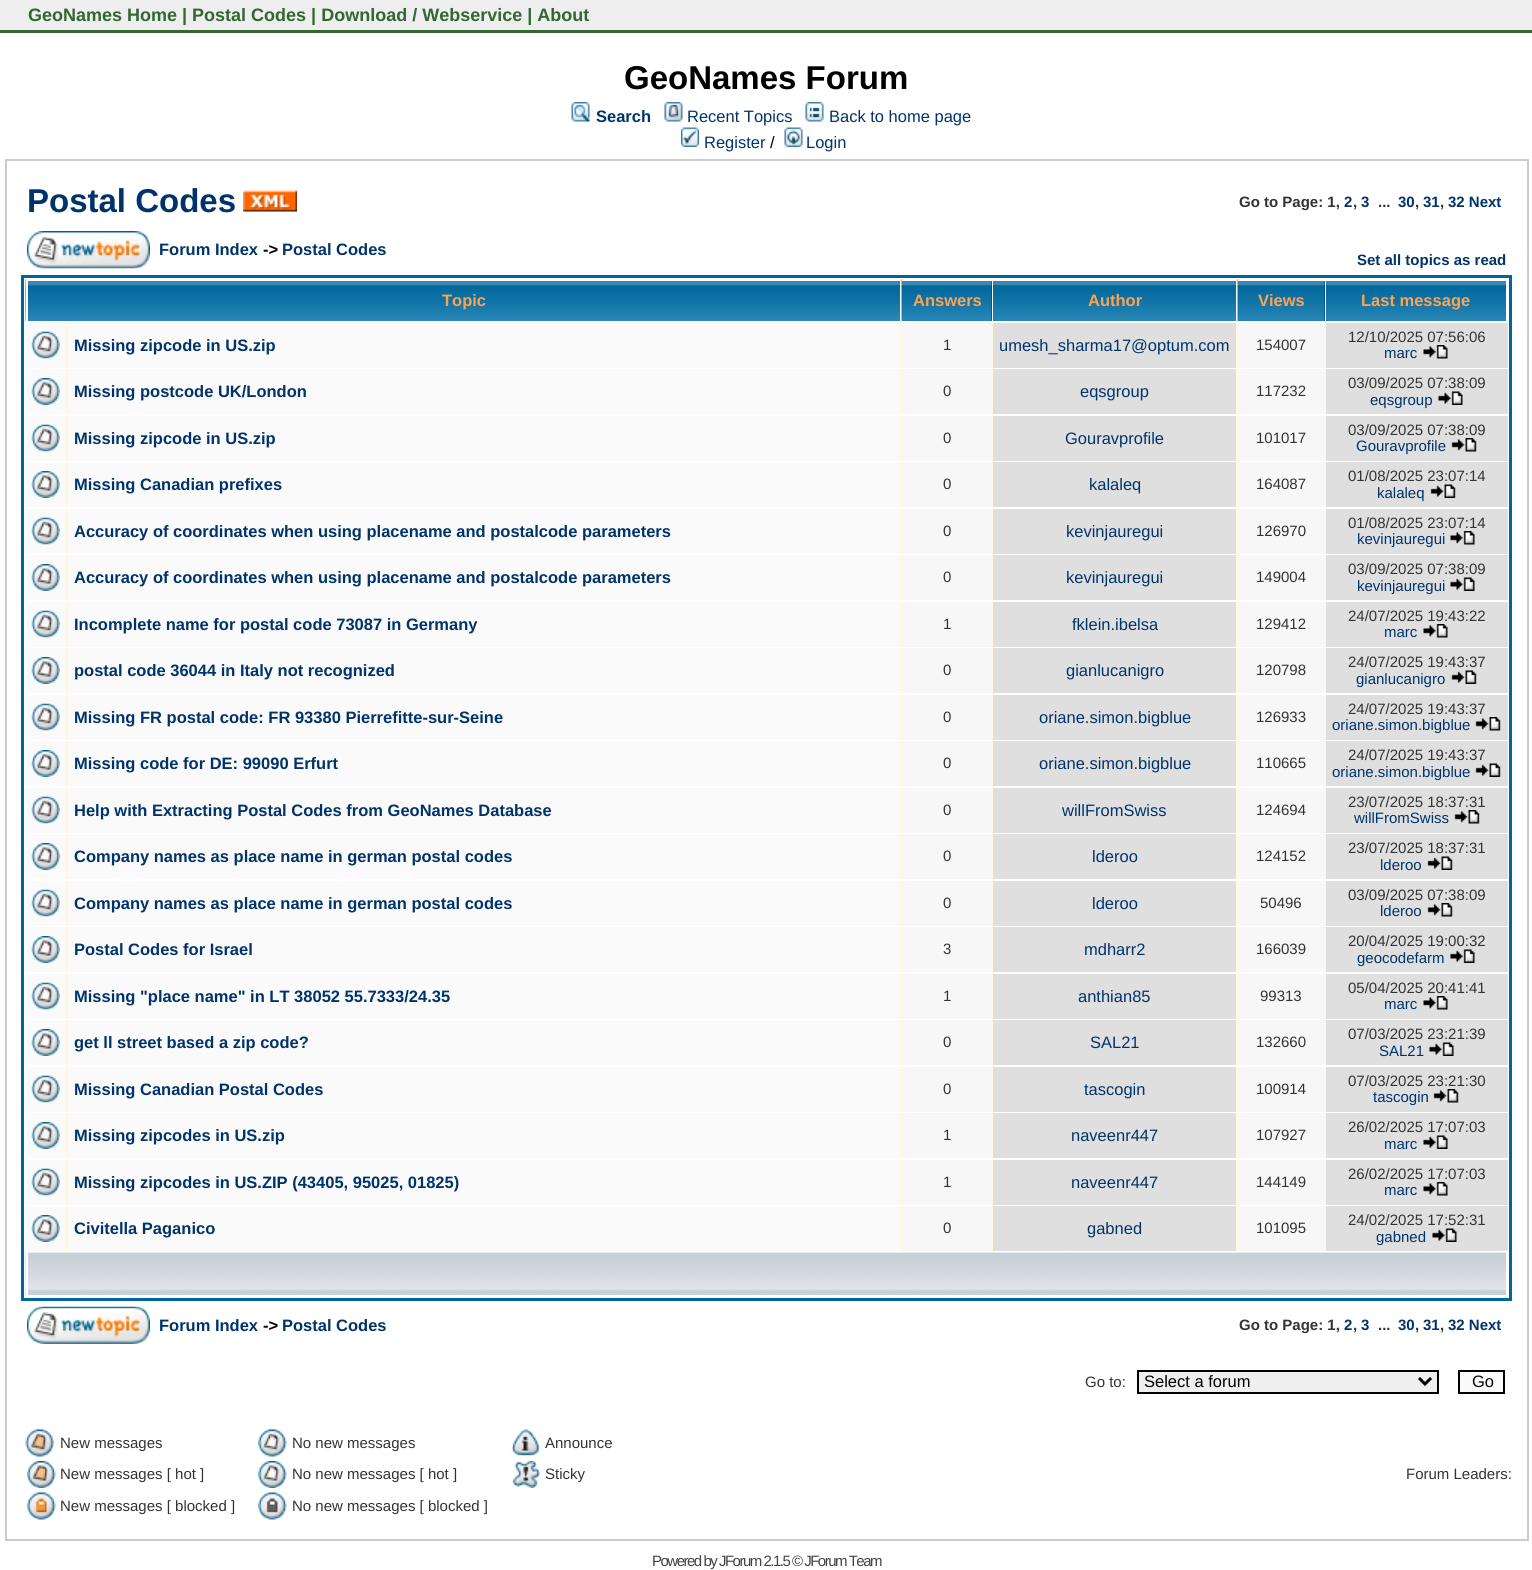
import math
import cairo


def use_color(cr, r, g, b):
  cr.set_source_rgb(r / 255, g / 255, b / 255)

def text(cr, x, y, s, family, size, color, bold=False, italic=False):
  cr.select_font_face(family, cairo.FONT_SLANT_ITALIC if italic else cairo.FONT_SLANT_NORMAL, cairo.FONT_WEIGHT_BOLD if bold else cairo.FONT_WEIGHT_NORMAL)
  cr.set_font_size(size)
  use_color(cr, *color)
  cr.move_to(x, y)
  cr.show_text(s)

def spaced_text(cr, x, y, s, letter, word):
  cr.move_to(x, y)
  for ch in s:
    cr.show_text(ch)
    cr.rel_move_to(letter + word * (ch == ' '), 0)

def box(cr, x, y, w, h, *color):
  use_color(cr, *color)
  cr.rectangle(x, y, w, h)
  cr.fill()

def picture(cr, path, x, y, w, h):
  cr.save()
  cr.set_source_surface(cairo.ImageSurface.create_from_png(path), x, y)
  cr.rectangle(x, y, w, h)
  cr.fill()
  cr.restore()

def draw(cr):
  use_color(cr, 255, 255, 255)
  cr.paint()
  box(cr, 0, 0, 1532, 30, 238, 238, 238)
  box(cr, 0, 30, 1532, 3, 51, 102, 51)
  picture(cr, "img_01.png", 571, 102, 19, 20)
  picture(cr, "img_02.png", 664, 102, 19, 20)
  picture(cr, "img_03.png", 805, 102, 19, 20)
  picture(cr, "img_04.png", 681, 127, 18, 20)
  picture(cr, "img_05.png", 784, 127, 19, 20)
  cr.rectangle(6, 160, 1522, 1380)
  use_color(cr, 204, 204, 204)
  cr.stroke()
  picture(cr, "img_06.png", 243, 190, 54, 22)
  picture(cr, "img_07.png", 27, 231, 123, 38)
  cr.rectangle(22.5, 276.5, 1488, 1023)
  use_color(cr, 0, 102, 153)
  cr.set_line_width(3)
  cr.stroke()
  picture(cr, "img_08.png", 25, 279, 875, 42)
  box(cr, 26, 279, 874, 2, 255, 255, 255)
  box(cr, 26, 279, 2, 42, 255, 255, 255)
  box(cr, 991, 281, 1, 40, 1, 51, 107)
  picture(cr, "img_09.png", 901, 279, 91, 42)
  box(cr, 902, 279, 90, 2, 255, 255, 255)
  picture(cr, "img_10.png", 993, 281, 243, 40)
  box(cr, 1324, 281, 1, 40, 1, 51, 107)
  picture(cr, "img_11.png", 1237, 279, 88, 42)
  box(cr, 1238, 279, 87, 2, 255, 255, 255)
  picture(cr, "img_12.png", 1326, 281, 180, 40)
  box(cr, 66, 323, 1260, 45, 255, 248, 221)
  box(cr, 26, 323, 40, 45, 250, 250, 250)
  picture(cr, "img_13.png", 31, 331, 29, 28)
  box(cr, 68, 323, 832, 45, 250, 250, 250)
  box(cr, 902, 323, 90, 45, 247, 247, 248)
  box(cr, 993, 323, 243, 45, 223, 223, 223)
  box(cr, 1238, 323, 87, 45, 247, 247, 248)
  box(cr, 1326, 323, 182, 45, 223, 223, 223)
  picture(cr, "img_14.png", 1423, 345, 25, 14)
  box(cr, 66, 369, 1260, 45, 255, 248, 221)
  box(cr, 26, 369, 40, 45, 250, 250, 250)
  picture(cr, "img_15.png", 31, 378, 29, 27)
  box(cr, 68, 369, 832, 45, 250, 250, 250)
  box(cr, 902, 369, 90, 45, 247, 247, 248)
  box(cr, 993, 369, 243, 45, 223, 223, 223)
  box(cr, 1238, 369, 87, 45, 247, 247, 248)
  box(cr, 1326, 369, 182, 45, 223, 223, 223)
  picture(cr, "img_16.png", 1438, 391, 25, 14)
  box(cr, 66, 416, 1260, 45, 255, 248, 221)
  box(cr, 26, 416, 40, 45, 250, 250, 250)
  picture(cr, "img_13.png", 31, 424, 29, 28)
  box(cr, 68, 416, 832, 45, 250, 250, 250)
  box(cr, 902, 416, 90, 45, 247, 247, 248)
  box(cr, 993, 416, 243, 45, 223, 223, 223)
  box(cr, 1238, 416, 87, 45, 247, 247, 248)
  box(cr, 1326, 416, 182, 45, 223, 223, 223)
  picture(cr, "img_17.png", 1451, 438, 26, 14)
  box(cr, 66, 462, 1260, 45, 255, 248, 221)
  box(cr, 26, 462, 40, 45, 250, 250, 250)
  picture(cr, "img_15.png", 31, 471, 29, 27)
  box(cr, 68, 462, 832, 45, 250, 250, 250)
  box(cr, 902, 462, 90, 45, 247, 247, 248)
  box(cr, 993, 462, 243, 45, 223, 223, 223)
  box(cr, 1238, 462, 87, 45, 247, 247, 248)
  box(cr, 1326, 462, 182, 45, 223, 223, 223)
  picture(cr, "img_18.png", 1430, 484, 26, 14)
  box(cr, 66, 509, 1260, 45, 255, 248, 221)
  box(cr, 26, 509, 40, 45, 250, 250, 250)
  picture(cr, "img_13.png", 31, 517, 29, 28)
  box(cr, 68, 509, 832, 45, 250, 250, 250)
  box(cr, 902, 509, 90, 45, 247, 247, 248)
  box(cr, 993, 509, 243, 45, 223, 223, 223)
  box(cr, 1238, 509, 87, 45, 247, 247, 248)
  box(cr, 1326, 509, 182, 45, 223, 223, 223)
  picture(cr, "img_14.png", 1450, 531, 25, 14)
  box(cr, 66, 555, 1260, 45, 255, 248, 221)
  box(cr, 26, 555, 40, 45, 250, 250, 250)
  picture(cr, "img_15.png", 31, 564, 29, 27)
  box(cr, 68, 555, 832, 45, 250, 250, 250)
  box(cr, 902, 555, 90, 45, 247, 247, 248)
  box(cr, 993, 555, 243, 45, 223, 223, 223)
  box(cr, 1238, 555, 87, 45, 247, 247, 248)
  box(cr, 1326, 555, 182, 45, 223, 223, 223)
  picture(cr, "img_16.png", 1450, 577, 25, 14)
  box(cr, 66, 602, 1260, 45, 255, 248, 221)
  box(cr, 26, 602, 40, 45, 250, 250, 250)
  picture(cr, "img_13.png", 31, 610, 29, 28)
  box(cr, 68, 602, 832, 45, 250, 250, 250)
  box(cr, 902, 602, 90, 45, 247, 247, 248)
  box(cr, 993, 602, 243, 45, 223, 223, 223)
  box(cr, 1238, 602, 87, 45, 247, 247, 248)
  box(cr, 1326, 602, 182, 45, 223, 223, 223)
  picture(cr, "img_14.png", 1423, 624, 25, 14)
  box(cr, 66, 648, 1260, 45, 255, 248, 221)
  box(cr, 26, 648, 40, 45, 250, 250, 250)
  picture(cr, "img_15.png", 31, 657, 29, 27)
  box(cr, 68, 648, 832, 45, 250, 250, 250)
  box(cr, 902, 648, 90, 45, 247, 247, 248)
  box(cr, 993, 648, 243, 45, 223, 223, 223)
  box(cr, 1238, 648, 87, 45, 247, 247, 248)
  box(cr, 1326, 648, 182, 45, 223, 223, 223)
  picture(cr, "img_18.png", 1451, 670, 26, 14)
  box(cr, 66, 695, 1260, 45, 255, 248, 221)
  box(cr, 26, 695, 40, 45, 250, 250, 250)
  picture(cr, "img_13.png", 31, 703, 29, 28)
  box(cr, 68, 695, 832, 45, 250, 250, 250)
  box(cr, 902, 695, 90, 45, 247, 247, 248)
  box(cr, 993, 695, 243, 45, 223, 223, 223)
  box(cr, 1238, 695, 87, 45, 247, 247, 248)
  box(cr, 1326, 695, 182, 45, 223, 223, 223)
  picture(cr, "img_17.png", 1475, 717, 26, 14)
  box(cr, 66, 741, 1260, 45, 255, 248, 221)
  box(cr, 26, 741, 40, 45, 250, 250, 250)
  picture(cr, "img_15.png", 31, 750, 29, 27)
  box(cr, 68, 741, 832, 45, 250, 250, 250)
  box(cr, 902, 741, 90, 45, 247, 247, 248)
  box(cr, 993, 741, 243, 45, 223, 223, 223)
  box(cr, 1238, 741, 87, 45, 247, 247, 248)
  box(cr, 1326, 741, 182, 45, 223, 223, 223)
  picture(cr, "img_18.png", 1475, 763, 26, 14)
  box(cr, 66, 788, 1260, 45, 255, 248, 221)
  box(cr, 26, 788, 40, 45, 250, 250, 250)
  picture(cr, "img_13.png", 31, 796, 29, 28)
  box(cr, 68, 788, 832, 45, 250, 250, 250)
  box(cr, 902, 788, 90, 45, 247, 247, 248)
  box(cr, 993, 788, 243, 45, 223, 223, 223)
  box(cr, 1238, 788, 87, 45, 247, 247, 248)
  box(cr, 1326, 788, 182, 45, 223, 223, 223)
  picture(cr, "img_17.png", 1454, 810, 26, 14)
  box(cr, 66, 834, 1260, 45, 255, 248, 221)
  box(cr, 26, 834, 40, 45, 250, 250, 250)
  picture(cr, "img_15.png", 31, 843, 29, 27)
  box(cr, 68, 834, 832, 45, 250, 250, 250)
  box(cr, 902, 834, 90, 45, 247, 247, 248)
  box(cr, 993, 834, 243, 45, 223, 223, 223)
  box(cr, 1238, 834, 87, 45, 247, 247, 248)
  box(cr, 1326, 834, 182, 45, 223, 223, 223)
  picture(cr, "img_18.png", 1427, 856, 26, 14)
  box(cr, 66, 881, 1260, 45, 255, 248, 221)
  box(cr, 26, 881, 40, 45, 250, 250, 250)
  picture(cr, "img_13.png", 31, 889, 29, 28)
  box(cr, 68, 881, 832, 45, 250, 250, 250)
  box(cr, 902, 881, 90, 45, 247, 247, 248)
  box(cr, 993, 881, 243, 45, 223, 223, 223)
  box(cr, 1238, 881, 87, 45, 247, 247, 248)
  box(cr, 1326, 881, 182, 45, 223, 223, 223)
  picture(cr, "img_17.png", 1427, 903, 26, 14)
  box(cr, 66, 927, 1260, 45, 255, 248, 221)
  box(cr, 26, 927, 40, 45, 250, 250, 250)
  picture(cr, "img_15.png", 31, 936, 29, 27)
  box(cr, 68, 927, 832, 45, 250, 250, 250)
  box(cr, 902, 927, 90, 45, 247, 247, 248)
  box(cr, 993, 927, 243, 45, 223, 223, 223)
  box(cr, 1238, 927, 87, 45, 247, 247, 248)
  box(cr, 1326, 927, 182, 45, 223, 223, 223)
  picture(cr, "img_16.png", 1450, 949, 25, 14)
  box(cr, 66, 974, 1260, 45, 255, 248, 221)
  box(cr, 26, 974, 40, 45, 250, 250, 250)
  picture(cr, "img_13.png", 31, 982, 29, 28)
  box(cr, 68, 974, 832, 45, 250, 250, 250)
  box(cr, 902, 974, 90, 45, 247, 247, 248)
  box(cr, 993, 974, 243, 45, 223, 223, 223)
  box(cr, 1238, 974, 87, 45, 247, 247, 248)
  box(cr, 1326, 974, 182, 45, 223, 223, 223)
  picture(cr, "img_14.png", 1423, 996, 25, 14)
  box(cr, 66, 1020, 1260, 45, 255, 248, 221)
  box(cr, 26, 1020, 40, 45, 250, 250, 250)
  picture(cr, "img_15.png", 31, 1029, 29, 27)
  box(cr, 68, 1020, 832, 45, 250, 250, 250)
  box(cr, 902, 1020, 90, 45, 247, 247, 248)
  box(cr, 993, 1020, 243, 45, 223, 223, 223)
  box(cr, 1238, 1020, 87, 45, 247, 247, 248)
  box(cr, 1326, 1020, 182, 45, 223, 223, 223)
  picture(cr, "img_16.png", 1429, 1042, 25, 14)
  box(cr, 66, 1067, 1260, 45, 255, 248, 221)
  box(cr, 26, 1067, 40, 45, 250, 250, 250)
  picture(cr, "img_13.png", 31, 1075, 29, 28)
  box(cr, 68, 1067, 832, 45, 250, 250, 250)
  box(cr, 902, 1067, 90, 45, 247, 247, 248)
  box(cr, 993, 1067, 243, 45, 223, 223, 223)
  box(cr, 1238, 1067, 87, 45, 247, 247, 248)
  box(cr, 1326, 1067, 182, 45, 223, 223, 223)
  picture(cr, "img_17.png", 1433, 1089, 26, 14)
  box(cr, 66, 1113, 1260, 45, 255, 248, 221)
  box(cr, 26, 1113, 40, 45, 250, 250, 250)
  picture(cr, "img_15.png", 31, 1122, 29, 27)
  box(cr, 68, 1113, 832, 45, 250, 250, 250)
  box(cr, 902, 1113, 90, 45, 247, 247, 248)
  box(cr, 993, 1113, 243, 45, 223, 223, 223)
  box(cr, 1238, 1113, 87, 45, 247, 247, 248)
  box(cr, 1326, 1113, 182, 45, 223, 223, 223)
  picture(cr, "img_16.png", 1423, 1135, 25, 14)
  box(cr, 66, 1160, 1260, 45, 255, 248, 221)
  box(cr, 26, 1160, 40, 45, 250, 250, 250)
  picture(cr, "img_13.png", 31, 1168, 29, 28)
  box(cr, 68, 1160, 832, 45, 250, 250, 250)
  box(cr, 902, 1160, 90, 45, 247, 247, 248)
  box(cr, 993, 1160, 243, 45, 223, 223, 223)
  box(cr, 1238, 1160, 87, 45, 247, 247, 248)
  box(cr, 1326, 1160, 182, 45, 223, 223, 223)
  picture(cr, "img_14.png", 1423, 1182, 25, 14)
  box(cr, 66, 1206, 1260, 45, 255, 248, 221)
  box(cr, 26, 1206, 40, 45, 250, 250, 250)
  picture(cr, "img_15.png", 31, 1215, 29, 27)
  box(cr, 68, 1206, 832, 45, 250, 250, 250)
  box(cr, 902, 1206, 90, 45, 247, 247, 248)
  box(cr, 993, 1206, 243, 45, 223, 223, 223)
  box(cr, 1238, 1206, 87, 45, 247, 247, 248)
  box(cr, 1326, 1206, 182, 45, 223, 223, 223)
  picture(cr, "img_16.png", 1432, 1228, 25, 14)
  picture(cr, "img_19.png", 25, 1252, 1483, 44)
  box(cr, 1506, 1253, 2, 43, 255, 255, 255)
  box(cr, 26, 1295, 1482, 1, 255, 255, 255)
  box(cr, 26, 1253, 2, 43, 255, 255, 255)
  picture(cr, "img_20.png", 27, 1306, 123, 38)
  use_color(cr, 239, 239, 239)
  cr.rectangle(1138, 1371, 300, 22)
  cr.fill_preserve()
  use_color(cr, 0, 0, 0)
  cr.set_line_width(2)
  cr.stroke()
  cr.new_path()
  cr.move_to(1419, 1378)
  cr.line_to(1425, 1384)
  cr.line_to(1431, 1378)
  cr.set_line_width(3)
  cr.stroke()
  use_color(cr, 250, 250, 250)
  cr.rectangle(1459, 1371, 45, 22)
  cr.fill_preserve()
  use_color(cr, 0, 0, 0)
  cr.set_line_width(2)
  cr.stroke()
  picture(cr, "img_21.png", 25, 1429, 29, 28)
  picture(cr, "img_22.png", 258, 1429, 29, 28)
  picture(cr, "img_23.png", 511, 1429, 29, 27)
  picture(cr, "img_24.png", 27, 1461, 29, 27)
  picture(cr, "img_25.png", 258, 1461, 29, 27)
  picture(cr, "img_26.png", 512, 1461, 28, 27)
  picture(cr, "img_27.png", 27, 1492, 29, 28)
  picture(cr, "img_28.png", 258, 1492, 29, 28)
  text(cr, 28, 21, "GeoNames Home | Postal Codes | Download / Webservice | About", "Liberation Sans", 18, (51, 102, 51), bold=True)
  text(cr, 624, 89, "GeoNames Forum", "Liberation Sans", 33, (0, 0, 0), bold=True)
  text(cr, 596, 122, "Search", "Liberation Sans", 16.5, (1, 51, 107), bold=True)
  text(cr, 687, 122, "Recent Topics", "Liberation Sans", 16.5, (1, 51, 107))
  text(cr, 829, 122, "Back to home page", "Liberation Sans", 16.5, (1, 51, 107))
  text(cr, 704, 148, "Register", "Liberation Sans", 16.5, (1, 51, 107))
  text(cr, 770, 148, "/", "Liberation Sans", 16.5, (0, 0, 0))
  text(cr, 806, 148, "Login", "Liberation Sans", 16.5, (1, 51, 107))
  text(cr, 27, 212, "Postal Codes", "Liberation Sans", 33, (1, 51, 107), bold=True)
  text(cr, 1239, 207, "Go to Page: 1,", "Liberation Sans", 15, (51, 51, 51), bold=True)
  text(cr, 1344, 207, "2", "Liberation Sans", 15, (1, 51, 107), bold=True)
  text(cr, 1353, 207, ",", "Liberation Sans", 15, (51, 51, 51), bold=True)
  text(cr, 1361, 207, "3", "Liberation Sans", 15, (1, 51, 107), bold=True)
  text(cr, 1378, 207, "...", "Liberation Sans", 15, (51, 51, 51), bold=True)
  text(cr, 1398, 207, "30", "Liberation Sans", 15, (1, 51, 107), bold=True)
  text(cr, 1415, 207, ",", "Liberation Sans", 15, (51, 51, 51), bold=True)
  text(cr, 1423, 207, "31", "Liberation Sans", 15, (1, 51, 107), bold=True)
  text(cr, 1440, 207, ",", "Liberation Sans", 15, (51, 51, 51), bold=True)
  text(cr, 1448, 207, "32 Next", "Liberation Sans", 15, (1, 51, 107), bold=True)
  text(cr, 159, 255, "Forum Index", "Liberation Sans", 16.5, (1, 51, 107), bold=True)
  text(cr, 263, 255, "->", "Liberation Sans", 16.5, (0, 0, 0), bold=True)
  text(cr, 282, 255, "Postal Codes", "Liberation Sans", 16.5, (1, 51, 107), bold=True)
  text(cr, 1357, 265, "Set all topics as read", "Liberation Sans", 15, (1, 51, 107), bold=True)
  text(cr, 442, 306, "Topic", "Liberation Sans", 16.5, (255, 163, 79), bold=True)
  text(cr, 913, 306, "Answers", "Liberation Sans", 16.5, (255, 163, 79), bold=True)
  text(cr, 1088, 306, "Author", "Liberation Sans", 16.5, (255, 163, 79), bold=True)
  text(cr, 1258, 306, "Views", "Liberation Sans", 16.5, (255, 163, 79), bold=True)
  text(cr, 1361, 306, "Last message", "Liberation Sans", 16.5, (255, 163, 79), bold=True)
  text(cr, 74, 351, "Missing zipcode in US.zip", "Liberation Sans", 16.5, (1, 51, 107), bold=True)
  text(cr, 943, 350, "1", "Liberation Sans", 15, (51, 51, 51))
  text(cr, 999, 351, "umesh_sharma17@optum.com", "Liberation Sans", 16.5, (1, 51, 107))
  text(cr, 1256, 350, "154007", "Liberation Sans", 15, (51, 51, 51))
  text(cr, 1348, 342, "12/10/2025 07:56:06", "Liberation Sans", 15, (51, 51, 51))
  text(cr, 1384, 358, "marc", "Liberation Sans", 15, (1, 51, 107))
  text(cr, 74, 397, "Missing postcode UK/London", "Liberation Sans", 16.5, (1, 51, 107), bold=True)
  text(cr, 943, 396, "0", "Liberation Sans", 15, (51, 51, 51))
  text(cr, 1080, 397, "eqsgroup", "Liberation Sans", 16.5, (1, 51, 107))
  text(cr, 1256, 396, "117232", "Liberation Sans", 15, (51, 51, 51))
  text(cr, 1348, 388, "03/09/2025 07:38:09", "Liberation Sans", 15, (51, 51, 51))
  text(cr, 1370, 405, "eqsgroup", "Liberation Sans", 15, (1, 51, 107))
  text(cr, 74, 444, "Missing zipcode in US.zip", "Liberation Sans", 16.5, (1, 51, 107), bold=True)
  text(cr, 943, 443, "0", "Liberation Sans", 15, (51, 51, 51))
  text(cr, 1065, 444, "Gouravprofile", "Liberation Sans", 16.5, (1, 51, 107))
  text(cr, 1256, 443, "101017", "Liberation Sans", 15, (51, 51, 51))
  text(cr, 1348, 435, "03/09/2025 07:38:09", "Liberation Sans", 15, (51, 51, 51))
  text(cr, 1356, 451, "Gouravprofile", "Liberation Sans", 15, (1, 51, 107))
  text(cr, 74, 490, "Missing Canadian prefixes", "Liberation Sans", 16.5, (1, 51, 107), bold=True)
  text(cr, 943, 489, "0", "Liberation Sans", 15, (51, 51, 51))
  text(cr, 1089, 490, "kalaleq", "Liberation Sans", 16.5, (1, 51, 107))
  text(cr, 1256, 489, "164087", "Liberation Sans", 15, (51, 51, 51))
  text(cr, 1348, 481, "01/08/2025 23:07:14", "Liberation Sans", 15, (51, 51, 51))
  text(cr, 1377, 498, "kalaleq", "Liberation Sans", 15, (1, 51, 107))
  text(cr, 74, 537, "Accuracy of coordinates when using placename and postalcode parameters", "Liberation Sans", 16.5, (1, 51, 107), bold=True)
  text(cr, 943, 536, "0", "Liberation Sans", 15, (51, 51, 51))
  text(cr, 1066, 537, "kevinjauregui", "Liberation Sans", 16.5, (1, 51, 107))
  text(cr, 1256, 536, "126970", "Liberation Sans", 15, (51, 51, 51))
  text(cr, 1348, 528, "01/08/2025 23:07:14", "Liberation Sans", 15, (51, 51, 51))
  text(cr, 1357, 544, "kevinjauregui", "Liberation Sans", 15, (1, 51, 107))
  text(cr, 74, 583, "Accuracy of coordinates when using placename and postalcode parameters", "Liberation Sans", 16.5, (1, 51, 107), bold=True)
  text(cr, 943, 582, "0", "Liberation Sans", 15, (51, 51, 51))
  text(cr, 1066, 583, "kevinjauregui", "Liberation Sans", 16.5, (1, 51, 107))
  text(cr, 1256, 582, "149004", "Liberation Sans", 15, (51, 51, 51))
  text(cr, 1348, 574, "03/09/2025 07:38:09", "Liberation Sans", 15, (51, 51, 51))
  text(cr, 1357, 591, "kevinjauregui", "Liberation Sans", 15, (1, 51, 107))
  text(cr, 74, 630, "Incomplete name for postal code 73087 in Germany", "Liberation Sans", 16.5, (1, 51, 107), bold=True)
  text(cr, 943, 629, "1", "Liberation Sans", 15, (51, 51, 51))
  text(cr, 1072, 630, "fklein.ibelsa", "Liberation Sans", 16.5, (1, 51, 107))
  text(cr, 1256, 629, "129412", "Liberation Sans", 15, (51, 51, 51))
  text(cr, 1348, 621, "24/07/2025 19:43:22", "Liberation Sans", 15, (51, 51, 51))
  text(cr, 1384, 637, "marc", "Liberation Sans", 15, (1, 51, 107))
  text(cr, 74, 676, "postal code 36044 in Italy not recognized", "Liberation Sans", 16.5, (1, 51, 107), bold=True)
  text(cr, 943, 675, "0", "Liberation Sans", 15, (51, 51, 51))
  text(cr, 1066, 676, "gianlucanigro", "Liberation Sans", 16.5, (1, 51, 107))
  text(cr, 1256, 675, "120798", "Liberation Sans", 15, (51, 51, 51))
  text(cr, 1348, 667, "24/07/2025 19:43:37", "Liberation Sans", 15, (51, 51, 51))
  text(cr, 1356, 684, "gianlucanigro", "Liberation Sans", 15, (1, 51, 107))
  text(cr, 74, 723, "Missing FR postal code: FR 93380 Pierrefitte-sur-Seine", "Liberation Sans", 16.5, (1, 51, 107), bold=True)
  text(cr, 943, 722, "0", "Liberation Sans", 15, (51, 51, 51))
  text(cr, 1039, 723, "oriane.simon.bigblue", "Liberation Sans", 16.5, (1, 51, 107))
  text(cr, 1256, 722, "126933", "Liberation Sans", 15, (51, 51, 51))
  text(cr, 1348, 714, "24/07/2025 19:43:37", "Liberation Sans", 15, (51, 51, 51))
  text(cr, 1332, 730, "oriane.simon.bigblue", "Liberation Sans", 15, (1, 51, 107))
  text(cr, 74, 769, "Missing code for DE: 99090 Erfurt", "Liberation Sans", 16.5, (1, 51, 107), bold=True)
  text(cr, 943, 768, "0", "Liberation Sans", 15, (51, 51, 51))
  text(cr, 1039, 769, "oriane.simon.bigblue", "Liberation Sans", 16.5, (1, 51, 107))
  text(cr, 1256, 768, "110665", "Liberation Sans", 15, (51, 51, 51))
  text(cr, 1348, 760, "24/07/2025 19:43:37", "Liberation Sans", 15, (51, 51, 51))
  text(cr, 1332, 777, "oriane.simon.bigblue", "Liberation Sans", 15, (1, 51, 107))
  text(cr, 74, 816, "Help with Extracting Postal Codes from GeoNames Database", "Liberation Sans", 16.5, (1, 51, 107), bold=True)
  text(cr, 943, 815, "0", "Liberation Sans", 15, (51, 51, 51))
  text(cr, 1062, 816, "willFromSwiss", "Liberation Sans", 16.5, (1, 51, 107))
  text(cr, 1256, 815, "124694", "Liberation Sans", 15, (51, 51, 51))
  text(cr, 1348, 807, "23/07/2025 18:37:31", "Liberation Sans", 15, (51, 51, 51))
  text(cr, 1354, 823, "willFromSwiss", "Liberation Sans", 15, (1, 51, 107))
  text(cr, 74, 862, "Company names as place name in german postal codes", "Liberation Sans", 16.5, (1, 51, 107), bold=True)
  text(cr, 943, 861, "0", "Liberation Sans", 15, (51, 51, 51))
  text(cr, 1092, 862, "lderoo", "Liberation Sans", 16.5, (1, 51, 107))
  text(cr, 1256, 861, "124152", "Liberation Sans", 15, (51, 51, 51))
  text(cr, 1348, 853, "23/07/2025 18:37:31", "Liberation Sans", 15, (51, 51, 51))
  text(cr, 1380, 870, "lderoo", "Liberation Sans", 15, (1, 51, 107))
  text(cr, 74, 909, "Company names as place name in german postal codes", "Liberation Sans", 16.5, (1, 51, 107), bold=True)
  text(cr, 943, 908, "0", "Liberation Sans", 15, (51, 51, 51))
  text(cr, 1092, 909, "lderoo", "Liberation Sans", 16.5, (1, 51, 107))
  text(cr, 1260, 908, "50496", "Liberation Sans", 15, (51, 51, 51))
  text(cr, 1348, 900, "03/09/2025 07:38:09", "Liberation Sans", 15, (51, 51, 51))
  text(cr, 1380, 916, "lderoo", "Liberation Sans", 15, (1, 51, 107))
  text(cr, 74, 955, "Postal Codes for Israel", "Liberation Sans", 16.5, (1, 51, 107), bold=True)
  text(cr, 943, 954, "3", "Liberation Sans", 15, (51, 51, 51))
  text(cr, 1084, 955, "mdharr2", "Liberation Sans", 16.5, (1, 51, 107))
  text(cr, 1256, 954, "166039", "Liberation Sans", 15, (51, 51, 51))
  text(cr, 1348, 946, "20/04/2025 19:00:32", "Liberation Sans", 15, (51, 51, 51))
  text(cr, 1357, 963, "geocodefarm", "Liberation Sans", 15, (1, 51, 107))
  text(cr, 74, 1002, "Missing \"place name\" in LT 38052 55.7333/24.35", "Liberation Sans", 16.5, (1, 51, 107), bold=True)
  text(cr, 943, 1001, "1", "Liberation Sans", 15, (51, 51, 51))
  text(cr, 1078, 1002, "anthian85", "Liberation Sans", 16.5, (1, 51, 107))
  text(cr, 1260, 1001, "99313", "Liberation Sans", 15, (51, 51, 51))
  text(cr, 1348, 993, "05/04/2025 20:41:41", "Liberation Sans", 15, (51, 51, 51))
  text(cr, 1384, 1009, "marc", "Liberation Sans", 15, (1, 51, 107))
  text(cr, 74, 1048, "get ll street based a zip code?", "Liberation Sans", 16.5, (1, 51, 107), bold=True)
  text(cr, 943, 1047, "0", "Liberation Sans", 15, (51, 51, 51))
  text(cr, 1090, 1048, "SAL21", "Liberation Sans", 16.5, (1, 51, 107))
  text(cr, 1256, 1047, "132660", "Liberation Sans", 15, (51, 51, 51))
  text(cr, 1348, 1039, "07/03/2025 23:21:39", "Liberation Sans", 15, (51, 51, 51))
  text(cr, 1379, 1056, "SAL21", "Liberation Sans", 15, (1, 51, 107))
  text(cr, 74, 1095, "Missing Canadian Postal Codes", "Liberation Sans", 16.5, (1, 51, 107), bold=True)
  text(cr, 943, 1094, "0", "Liberation Sans", 15, (51, 51, 51))
  text(cr, 1084, 1095, "tascogin", "Liberation Sans", 16.5, (1, 51, 107))
  text(cr, 1256, 1094, "100914", "Liberation Sans", 15, (51, 51, 51))
  text(cr, 1348, 1086, "07/03/2025 23:21:30", "Liberation Sans", 15, (51, 51, 51))
  text(cr, 1373, 1102, "tascogin", "Liberation Sans", 15, (1, 51, 107))
  text(cr, 74, 1141, "Missing zipcodes in US.zip", "Liberation Sans", 16.5, (1, 51, 107), bold=True)
  text(cr, 943, 1140, "1", "Liberation Sans", 15, (51, 51, 51))
  text(cr, 1071, 1141, "naveenr447", "Liberation Sans", 16.5, (1, 51, 107))
  text(cr, 1256, 1140, "107927", "Liberation Sans", 15, (51, 51, 51))
  text(cr, 1348, 1132, "26/02/2025 17:07:03", "Liberation Sans", 15, (51, 51, 51))
  text(cr, 1384, 1149, "marc", "Liberation Sans", 15, (1, 51, 107))
  text(cr, 74, 1188, "Missing zipcodes in US.ZIP (43405, 95025, 01825)", "Liberation Sans", 16.5, (1, 51, 107), bold=True)
  text(cr, 943, 1187, "1", "Liberation Sans", 15, (51, 51, 51))
  text(cr, 1071, 1188, "naveenr447", "Liberation Sans", 16.5, (1, 51, 107))
  text(cr, 1256, 1187, "144149", "Liberation Sans", 15, (51, 51, 51))
  text(cr, 1348, 1179, "26/02/2025 17:07:03", "Liberation Sans", 15, (51, 51, 51))
  text(cr, 1384, 1195, "marc", "Liberation Sans", 15, (1, 51, 107))
  text(cr, 74, 1234, "Civitella Paganico", "Liberation Sans", 16.5, (1, 51, 107), bold=True)
  text(cr, 943, 1233, "0", "Liberation Sans", 15, (51, 51, 51))
  text(cr, 1087, 1234, "gabned", "Liberation Sans", 16.5, (1, 51, 107))
  text(cr, 1256, 1233, "101095", "Liberation Sans", 15, (51, 51, 51))
  text(cr, 1348, 1225, "24/02/2025 17:52:31", "Liberation Sans", 15, (51, 51, 51))
  text(cr, 1376, 1242, "gabned", "Liberation Sans", 15, (1, 51, 107))
  text(cr, 159, 1331, "Forum Index", "Liberation Sans", 16.5, (1, 51, 107), bold=True)
  text(cr, 263, 1331, "->", "Liberation Sans", 16.5, (0, 0, 0), bold=True)
  text(cr, 282, 1331, "Postal Codes", "Liberation Sans", 16.5, (1, 51, 107), bold=True)
  text(cr, 1239, 1330, "Go to Page: 1,", "Liberation Sans", 15, (51, 51, 51), bold=True)
  text(cr, 1344, 1330, "2", "Liberation Sans", 15, (1, 51, 107), bold=True)
  text(cr, 1353, 1330, ",", "Liberation Sans", 15, (51, 51, 51), bold=True)
  text(cr, 1361, 1330, "3", "Liberation Sans", 15, (1, 51, 107), bold=True)
  text(cr, 1378, 1330, "...", "Liberation Sans", 15, (51, 51, 51), bold=True)
  text(cr, 1398, 1330, "30", "Liberation Sans", 15, (1, 51, 107), bold=True)
  text(cr, 1415, 1330, ",", "Liberation Sans", 15, (51, 51, 51), bold=True)
  text(cr, 1423, 1330, "31", "Liberation Sans", 15, (1, 51, 107), bold=True)
  text(cr, 1440, 1330, ",", "Liberation Sans", 15, (51, 51, 51), bold=True)
  text(cr, 1448, 1330, "32 Next", "Liberation Sans", 15, (1, 51, 107), bold=True)
  text(cr, 1085, 1387, "Go to:", "Liberation Sans", 15, (51, 51, 51))
  text(cr, 1144, 1387, "Select a forum", "Liberation Sans", 16.5, (0, 0, 0))
  text(cr, 1472, 1387, "Go", "Liberation Sans", 16.5, (0, 0, 0))
  text(cr, 60, 1448, "New messages", "Liberation Sans", 15, (51, 51, 51))
  text(cr, 292, 1448, "No new messages", "Liberation Sans", 15, (51, 51, 51))
  text(cr, 545, 1448, "Announce", "Liberation Sans", 15, (51, 51, 51))
  text(cr, 60, 1479, "New messages [ hot ]", "Liberation Sans", 15, (51, 51, 51))
  text(cr, 292, 1479, "No new messages [ hot ]", "Liberation Sans", 15, (51, 51, 51))
  text(cr, 545, 1479, "Sticky", "Liberation Sans", 15, (51, 51, 51))
  text(cr, 60, 1511, "New messages [ blocked ]", "Liberation Sans", 15, (51, 51, 51))
  text(cr, 292, 1511, "No new messages [ blocked ]", "Liberation Sans", 15, (51, 51, 51))
  text(cr, 1406, 1479, "Forum Leaders:", "Liberation Sans", 15, (51, 51, 51))
  use_color(cr, 68, 68, 68)
  spaced_text(cr, 652, 1566, "Powered by JForum 2.1.5 © JForum Team", -1.5, 0)


surface = cairo.ImageSurface(cairo.FORMAT_RGB24, 1532, 1570)
cr = cairo.Context(surface)
options = cairo.FontOptions()
options.set_hint_metrics(cairo.HINT_METRICS_OFF)
options.set_hint_style(cairo.HINT_STYLE_NONE)
cr.set_font_options(options)
cr.set_miter_limit(4)
draw(cr)
surface.write_to_png("out.png")
